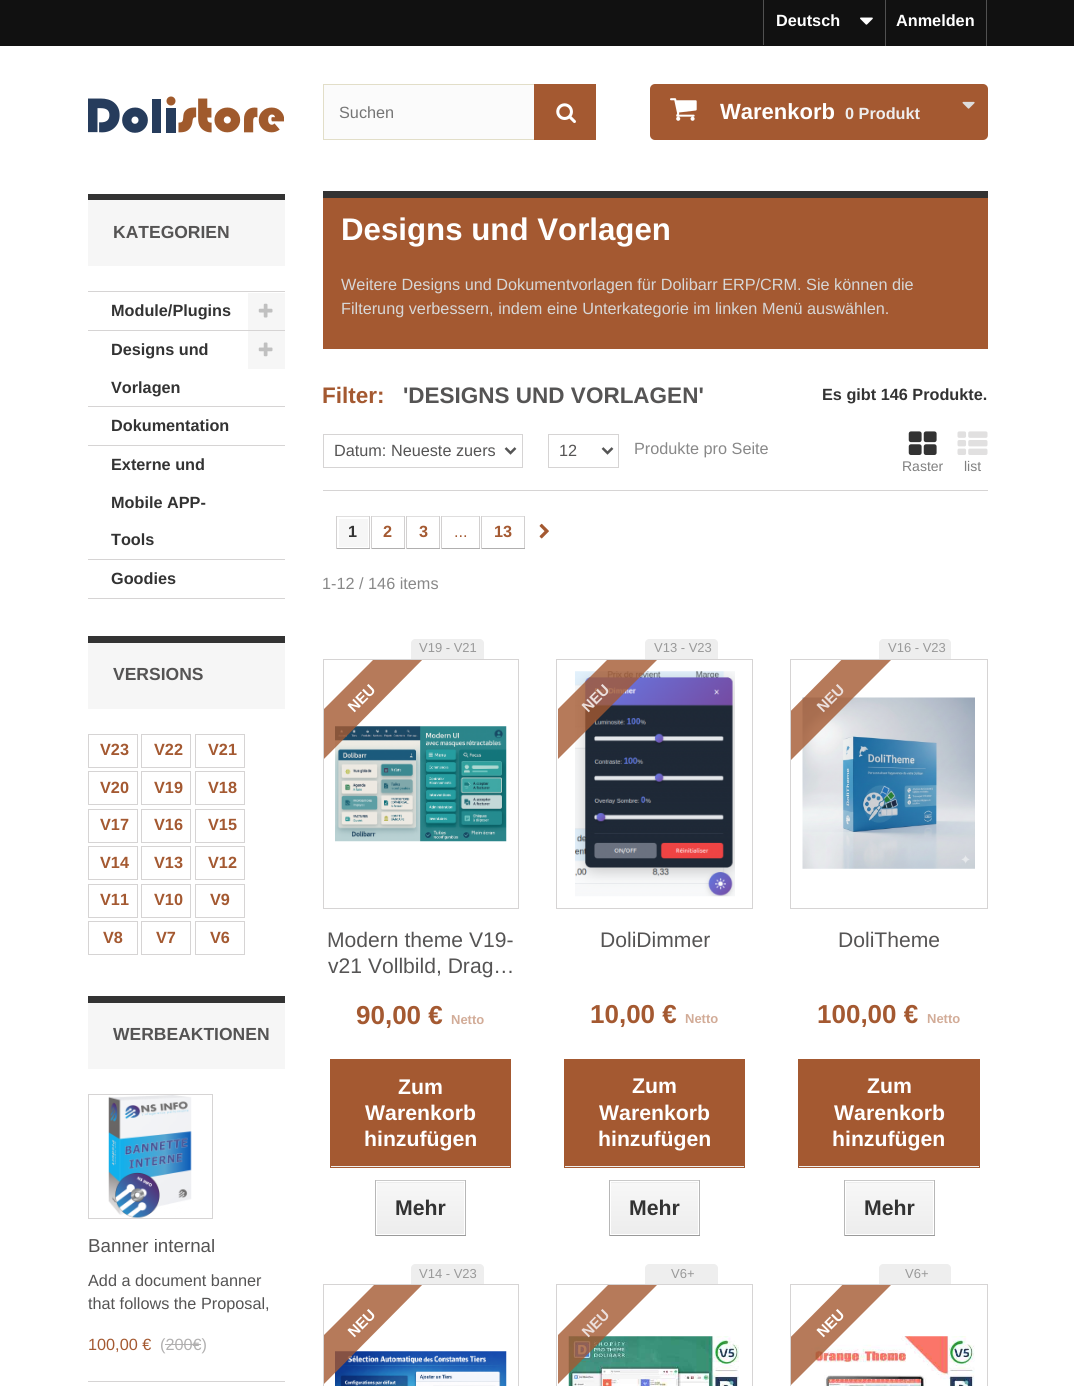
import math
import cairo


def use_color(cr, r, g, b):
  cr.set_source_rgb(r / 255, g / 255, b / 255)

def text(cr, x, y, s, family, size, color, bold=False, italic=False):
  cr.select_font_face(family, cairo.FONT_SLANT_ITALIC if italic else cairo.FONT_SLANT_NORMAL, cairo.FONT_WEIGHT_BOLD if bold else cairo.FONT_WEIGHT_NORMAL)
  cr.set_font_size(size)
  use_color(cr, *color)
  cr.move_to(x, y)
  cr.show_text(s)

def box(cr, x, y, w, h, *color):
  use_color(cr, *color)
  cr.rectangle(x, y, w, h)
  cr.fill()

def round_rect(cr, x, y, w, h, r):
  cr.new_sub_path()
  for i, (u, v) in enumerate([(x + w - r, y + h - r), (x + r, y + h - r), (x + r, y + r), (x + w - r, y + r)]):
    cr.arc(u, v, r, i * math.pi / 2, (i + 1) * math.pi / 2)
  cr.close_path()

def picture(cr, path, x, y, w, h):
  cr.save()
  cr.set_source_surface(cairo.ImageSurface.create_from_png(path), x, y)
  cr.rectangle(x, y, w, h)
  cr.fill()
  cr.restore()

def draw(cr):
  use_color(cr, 255, 255, 255)
  cr.paint()
  box(cr, 0, 0, 1074, 46, 17, 17, 17)
  box(cr, 763, 0, 1, 45, 81, 81, 81)
  picture(cr, "img_01.png", 860, 17, 13, 8)
  box(cr, 986, 0, 1, 46, 81, 81, 81)
  box(cr, 885, 0, 1, 46, 81, 81, 81)
  picture(cr, "img_02.png", 88, 96, 196, 37)
  box(cr, 324, 85, 210, 54, 251, 251, 251)
  cr.rectangle(323.5, 84.5, 272, 55)
  use_color(cr, 226, 222, 200)
  cr.set_line_width(1)
  cr.stroke()
  box(cr, 534, 84, 62, 56, 164, 89, 49)
  picture(cr, "img_03.png", 556, 103, 20, 20)
  round_rect(cr, 650, 84, 338, 56, 5)
  cr.fill()
  picture(cr, "img_04.png", 670, 98, 27, 23)
  picture(cr, "img_05.png", 962, 101, 13, 8)
  box(cr, 88, 200, 197, 66, 246, 246, 246)
  box(cr, 88, 194, 197, 6, 51, 51, 51)
  box(cr, 88, 291, 197, 1, 214, 212, 212)
  box(cr, 88, 330, 197, 1, 214, 212, 212)
  box(cr, 248, 293, 37, 37, 246, 246, 246)
  picture(cr, "img_06.png", 258, 303, 15, 15)
  box(cr, 88, 406, 197, 1, 214, 212, 212)
  box(cr, 248, 331, 37, 38, 246, 246, 246)
  picture(cr, "img_07.png", 258, 342, 15, 15)
  box(cr, 88, 445, 197, 1, 214, 212, 212)
  box(cr, 88, 559, 197, 1, 214, 212, 212)
  box(cr, 88, 598, 197, 1, 214, 212, 212)
  box(cr, 88, 643, 197, 66, 246, 246, 246)
  box(cr, 88, 636, 197, 7, 51, 51, 51)
  cr.rectangle(88.5, 734.5, 49, 33)
  use_color(cr, 214, 212, 212)
  cr.stroke()
  cr.rectangle(141.5, 734.5, 49, 33)
  cr.stroke()
  cr.rectangle(195.5, 734.5, 49, 33)
  cr.stroke()
  cr.rectangle(88.5, 771.5, 49, 33)
  cr.stroke()
  cr.rectangle(141.5, 771.5, 49, 33)
  cr.stroke()
  cr.rectangle(195.5, 771.5, 49, 33)
  cr.stroke()
  cr.rectangle(88.5, 809.5, 49, 33)
  cr.stroke()
  cr.rectangle(141.5, 809.5, 49, 33)
  cr.stroke()
  cr.rectangle(195.5, 809.5, 49, 33)
  cr.stroke()
  cr.rectangle(88.5, 846.5, 49, 33)
  cr.stroke()
  cr.rectangle(141.5, 846.5, 49, 33)
  cr.stroke()
  cr.rectangle(195.5, 846.5, 49, 33)
  cr.stroke()
  cr.rectangle(88.5, 884.5, 49, 33)
  cr.stroke()
  cr.rectangle(141.5, 884.5, 49, 33)
  cr.stroke()
  cr.rectangle(195.5, 884.5, 49, 33)
  cr.stroke()
  cr.rectangle(88.5, 921.5, 49, 33)
  cr.stroke()
  cr.rectangle(141.5, 921.5, 49, 33)
  cr.stroke()
  cr.rectangle(195.5, 921.5, 49, 33)
  cr.stroke()
  box(cr, 88, 1003, 197, 66, 246, 246, 246)
  box(cr, 88, 996, 197, 7, 51, 51, 51)
  box(cr, 88, 1381, 197, 1, 214, 212, 212)
  cr.rectangle(88.5, 1094.5, 124, 124)
  cr.stroke()
  picture(cr, "img_08.png", 108, 1095, 84, 123)
  box(cr, 165, 1344, 36, 1, 177, 176, 176)
  box(cr, 323, 191, 665, 7, 51, 51, 51)
  box(cr, 323, 198, 665, 151, 164, 89, 49)
  box(cr, 323, 490, 665, 1, 214, 212, 212)
  cr.rectangle(323.5, 434.5, 199, 33)
  cr.stroke()
  cr.new_path()
  cr.move_to(505.5, 448)
  cr.line_to(510.5, 453)
  cr.line_to(515.5, 448)
  use_color(cr, 85, 85, 85)
  cr.set_line_width(2.5)
  cr.stroke()
  cr.rectangle(548.5, 434.5, 70, 33)
  use_color(cr, 214, 212, 212)
  cr.set_line_width(1)
  cr.stroke()
  cr.new_path()
  cr.move_to(602.5, 448)
  cr.line_to(607.5, 453)
  cr.line_to(612.5, 448)
  use_color(cr, 85, 85, 85)
  cr.set_line_width(2.5)
  cr.stroke()
  picture(cr, "img_09.png", 908, 431, 29, 24)
  picture(cr, "img_10.png", 957, 431, 31, 24)
  box(cr, 336, 516, 34, 1, 223, 222, 222)
  box(cr, 369, 516, 1, 33, 210, 208, 208)
  box(cr, 336, 548, 34, 1, 176, 175, 175)
  box(cr, 336, 516, 1, 33, 210, 208, 208)
  box(cr, 339, 519, 29, 28, 246, 246, 246)
  box(cr, 371, 516, 34, 1, 223, 222, 222)
  box(cr, 404, 516, 1, 33, 210, 208, 208)
  box(cr, 371, 548, 34, 1, 176, 175, 175)
  box(cr, 371, 516, 1, 33, 210, 208, 208)
  box(cr, 406, 516, 34, 1, 223, 222, 222)
  box(cr, 439, 516, 1, 33, 210, 208, 208)
  box(cr, 406, 548, 34, 1, 176, 175, 175)
  box(cr, 406, 516, 1, 33, 210, 208, 208)
  box(cr, 441, 516, 39, 1, 223, 222, 222)
  box(cr, 479, 516, 1, 33, 210, 208, 208)
  box(cr, 441, 548, 39, 1, 176, 175, 175)
  box(cr, 441, 516, 1, 33, 210, 208, 208)
  box(cr, 481, 516, 44, 1, 223, 222, 222)
  box(cr, 524, 516, 1, 33, 210, 208, 208)
  box(cr, 481, 548, 44, 1, 176, 175, 175)
  box(cr, 481, 516, 1, 33, 210, 208, 208)
  picture(cr, "img_11.png", 539, 523, 10, 16)
  cr.rectangle(323.5, 659.5, 195, 249)
  use_color(cr, 214, 212, 212)
  cr.set_line_width(1)
  cr.stroke()
  use_color(cr, 238, 238, 238)
  cr.new_path()
  cr.move_to(415, 639)
  cr.line_to(480, 639)
  cr.curve_to(482, 639, 484, 641, 484, 643)
  cr.line_to(484, 659)
  cr.line_to(411, 659)
  cr.line_to(411, 643)
  cr.curve_to(411, 641, 413, 639, 415, 639)
  cr.close_path()
  cr.fill()
  picture(cr, "img_12.png", 335, 726, 172, 116)
  cr.save()
  cr.rectangle(324, 660, 106, 106)
  cr.clip()
  cr.set_source_rgba(0.643, 0.349, 0.192, 0.8)
  cr.new_path()
  cr.move_to(291, 742)
  cr.line_to(406, 627)
  cr.line_to(430, 652)
  cr.line_to(316, 767)
  cr.close_path()
  cr.fill()
  cr.restore()
  box(cr, 331, 1166, 179, 1, 239, 239, 239)
  cr.rectangle(330.5, 1059.5, 180, 108)
  use_color(cr, 164, 89, 49)
  cr.stroke()
  box(cr, 331, 1060, 179, 106, 164, 89, 49)
  box(cr, 375, 1180, 91, 1, 202, 202, 202)
  box(cr, 465, 1180, 1, 56, 183, 183, 183)
  box(cr, 375, 1235, 91, 1, 154, 154, 154)
  box(cr, 375, 1180, 1, 56, 183, 183, 183)
  gradient = cairo.LinearGradient(421, 1131, 421, 1183)
  gradient.add_color_stop_rgba(0, 0.969, 0.969, 0.969, 1)
  gradient.add_color_stop_rgba(1, 0.929, 0.929, 0.929, 1)
  cr.set_source(gradient)
  cr.rectangle(376, 1182, 89, 1)
  cr.fill()
  gradient = cairo.LinearGradient(421, 1183, 421, 1234)
  gradient.add_color_stop_rgba(0, 0.969, 0.969, 0.969, 1)
  gradient.add_color_stop_rgba(1, 0.929, 0.929, 0.929, 1)
  cr.set_source(gradient)
  cr.rectangle(377, 1183, 87, 51)
  cr.fill()
  cr.rectangle(376.5, 1181.5, 88, 53)
  use_color(cr, 255, 255, 255)
  cr.stroke()
  cr.rectangle(556.5, 659.5, 196, 249)
  use_color(cr, 214, 212, 212)
  cr.stroke()
  use_color(cr, 238, 238, 238)
  cr.new_path()
  cr.move_to(649, 639)
  cr.line_to(714, 639)
  cr.curve_to(716, 639, 718, 641, 718, 643)
  cr.line_to(718, 659)
  cr.line_to(645, 659)
  cr.line_to(645, 643)
  cr.curve_to(645, 641, 647, 639, 649, 639)
  cr.close_path()
  cr.fill()
  picture(cr, "img_13.png", 575, 671, 160, 226)
  cr.save()
  cr.rectangle(558, 660, 106, 106)
  cr.clip()
  cr.set_source_rgba(0.643, 0.349, 0.192, 0.8)
  cr.new_path()
  cr.move_to(525, 742)
  cr.line_to(640, 627)
  cr.line_to(665, 652)
  cr.line_to(550, 767)
  cr.close_path()
  cr.fill()
  cr.restore()
  box(cr, 565, 1166, 179, 1, 239, 239, 239)
  cr.rectangle(564.5, 1059.5, 180, 108)
  use_color(cr, 164, 89, 49)
  cr.stroke()
  box(cr, 565, 1060, 179, 106, 164, 89, 49)
  box(cr, 609, 1180, 91, 1, 202, 202, 202)
  box(cr, 699, 1180, 1, 56, 183, 183, 183)
  box(cr, 609, 1235, 91, 1, 154, 154, 154)
  box(cr, 609, 1180, 1, 56, 183, 183, 183)
  gradient = cairo.LinearGradient(654, 1131, 654, 1183)
  gradient.add_color_stop_rgba(0, 0.969, 0.969, 0.969, 1)
  gradient.add_color_stop_rgba(1, 0.929, 0.929, 0.929, 1)
  cr.set_source(gradient)
  cr.rectangle(610, 1182, 89, 1)
  cr.fill()
  gradient = cairo.LinearGradient(654, 1183, 654, 1234)
  gradient.add_color_stop_rgba(0, 0.969, 0.969, 0.969, 1)
  gradient.add_color_stop_rgba(1, 0.929, 0.929, 0.929, 1)
  cr.set_source(gradient)
  cr.rectangle(611, 1183, 87, 51)
  cr.fill()
  cr.rectangle(610.5, 1181.5, 88, 53)
  use_color(cr, 255, 255, 255)
  cr.stroke()
  cr.rectangle(790.5, 659.5, 197, 249)
  use_color(cr, 214, 212, 212)
  cr.stroke()
  use_color(cr, 238, 238, 238)
  cr.new_path()
  cr.move_to(883, 639)
  cr.line_to(947, 639)
  cr.curve_to(949, 639, 951, 641, 951, 643)
  cr.line_to(951, 659)
  cr.line_to(879, 659)
  cr.line_to(879, 643)
  cr.curve_to(879, 641, 881, 639, 883, 639)
  cr.close_path()
  cr.fill()
  picture(cr, "img_14.png", 802, 697, 173, 172)
  cr.save()
  cr.rectangle(791, 660, 107, 106)
  cr.clip()
  cr.set_source_rgba(0.643, 0.349, 0.192, 0.8)
  cr.new_path()
  cr.move_to(760, 742)
  cr.line_to(874, 627)
  cr.line_to(899, 652)
  cr.line_to(784, 767)
  cr.close_path()
  cr.fill()
  cr.restore()
  box(cr, 799, 1166, 180, 1, 239, 239, 239)
  cr.rectangle(798.5, 1059.5, 181, 108)
  use_color(cr, 164, 89, 49)
  cr.stroke()
  box(cr, 799, 1060, 180, 106, 164, 89, 49)
  box(cr, 844, 1180, 91, 1, 202, 202, 202)
  box(cr, 934, 1180, 1, 56, 183, 183, 183)
  box(cr, 844, 1235, 91, 1, 154, 154, 154)
  box(cr, 844, 1180, 1, 56, 183, 183, 183)
  gradient = cairo.LinearGradient(889, 1131, 889, 1183)
  gradient.add_color_stop_rgba(0, 0.969, 0.969, 0.969, 1)
  gradient.add_color_stop_rgba(1, 0.929, 0.929, 0.929, 1)
  cr.set_source(gradient)
  cr.rectangle(845, 1182, 89, 1)
  cr.fill()
  gradient = cairo.LinearGradient(889, 1183, 889, 1234)
  gradient.add_color_stop_rgba(0, 0.969, 0.969, 0.969, 1)
  gradient.add_color_stop_rgba(1, 0.929, 0.929, 0.929, 1)
  cr.set_source(gradient)
  cr.rectangle(846, 1183, 87, 51)
  cr.fill()
  cr.rectangle(845.5, 1181.5, 88, 53)
  use_color(cr, 255, 255, 255)
  cr.stroke()
  cr.rectangle(323.5, 1284.5, 195, 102)
  use_color(cr, 214, 212, 212)
  cr.stroke()
  use_color(cr, 238, 238, 238)
  cr.new_path()
  cr.move_to(415, 1264)
  cr.line_to(480, 1264)
  cr.curve_to(482, 1264, 484, 1266, 484, 1268)
  cr.line_to(484, 1284)
  cr.line_to(411, 1284)
  cr.line_to(411, 1268)
  cr.curve_to(411, 1266, 413, 1264, 415, 1264)
  cr.close_path()
  cr.fill()
  picture(cr, "img_15.png", 335, 1351, 172, 35)
  cr.save()
  cr.rectangle(324, 1285, 106, 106)
  cr.clip()
  cr.set_source_rgba(0.643, 0.349, 0.192, 0.8)
  cr.new_path()
  cr.move_to(291, 1368)
  cr.line_to(406, 1253)
  cr.line_to(430, 1277)
  cr.line_to(316, 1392)
  cr.close_path()
  cr.fill()
  cr.restore()
  cr.rectangle(556.5, 1284.5, 196, 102)
  use_color(cr, 214, 212, 212)
  cr.stroke()
  use_color(cr, 238, 238, 238)
  cr.new_path()
  cr.move_to(649, 1264)
  cr.line_to(714, 1264)
  cr.curve_to(716, 1264, 718, 1266, 718, 1268)
  cr.line_to(718, 1284)
  cr.line_to(645, 1284)
  cr.line_to(645, 1268)
  cr.curve_to(645, 1266, 647, 1264, 649, 1264)
  cr.close_path()
  cr.fill()
  picture(cr, "img_16.png", 568, 1336, 171, 50)
  cr.save()
  cr.rectangle(558, 1285, 106, 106)
  cr.clip()
  cr.set_source_rgba(0.643, 0.349, 0.192, 0.8)
  cr.new_path()
  cr.move_to(525, 1368)
  cr.line_to(640, 1253)
  cr.line_to(665, 1277)
  cr.line_to(550, 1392)
  cr.close_path()
  cr.fill()
  cr.restore()
  cr.rectangle(790.5, 1284.5, 197, 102)
  use_color(cr, 214, 212, 212)
  cr.stroke()
  use_color(cr, 238, 238, 238)
  cr.new_path()
  cr.move_to(883, 1264)
  cr.line_to(947, 1264)
  cr.curve_to(949, 1264, 951, 1266, 951, 1268)
  cr.line_to(951, 1284)
  cr.line_to(879, 1284)
  cr.line_to(879, 1268)
  cr.curve_to(879, 1266, 881, 1264, 883, 1264)
  cr.close_path()
  cr.fill()
  picture(cr, "img_17.png", 811, 1336, 164, 50)
  cr.save()
  cr.rectangle(791, 1285, 107, 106)
  cr.clip()
  cr.set_source_rgba(0.643, 0.349, 0.192, 0.8)
  cr.new_path()
  cr.move_to(760, 1368)
  cr.line_to(874, 1253)
  cr.line_to(899, 1277)
  cr.line_to(784, 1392)
  cr.close_path()
  cr.fill()
  cr.restore()
  text(cr, 776, 26, "Deutsch", "Liberation Sans", 16.25, (255, 255, 255), bold=True)
  text(cr, 896, 26, "Anmelden", "Liberation Sans", 16.25, (255, 255, 255), bold=True)
  text(cr, 339, 118, "Suchen", "Liberation Sans", 16.25, (117, 117, 117))
  text(cr, 720, 119, "Warenkorb", "Liberation Sans", 22, (255, 255, 255), bold=True)
  text(cr, 845, 119, "0 Produkt", "Liberation Sans", 16.25, (238, 238, 238), bold=True)
  text(cr, 113, 238, "KATEGORIEN", "Liberation Sans", 17.5, (85, 84, 84), bold=True)
  text(cr, 111, 316, "Module/Plugins", "Liberation Sans", 16.25, (51, 51, 51), bold=True)
  text(cr, 111, 355, "Designs und", "Liberation Sans", 16.25, (51, 51, 51), bold=True)
  text(cr, 111, 393, "Vorlagen", "Liberation Sans", 16.25, (51, 51, 51), bold=True)
  text(cr, 111, 431, "Dokumentation", "Liberation Sans", 16.25, (51, 51, 51), bold=True)
  text(cr, 111, 470, "Externe und", "Liberation Sans", 16.25, (51, 51, 51), bold=True)
  text(cr, 111, 508, "Mobile APP-", "Liberation Sans", 16.25, (51, 51, 51), bold=True)
  text(cr, 111, 545, "Tools", "Liberation Sans", 16.25, (51, 51, 51), bold=True)
  text(cr, 111, 584, "Goodies", "Liberation Sans", 16.25, (51, 51, 51), bold=True)
  text(cr, 113, 680, "VERSIONS", "Liberation Sans", 17.5, (85, 84, 84), bold=True)
  text(cr, 100, 755, "V23", "Liberation Sans", 16.25, (164, 89, 49), bold=True)
  text(cr, 154, 755, "V22", "Liberation Sans", 16.25, (164, 89, 49), bold=True)
  text(cr, 208, 755, "V21", "Liberation Sans", 16.25, (164, 89, 49), bold=True)
  text(cr, 100, 793, "V20", "Liberation Sans", 16.25, (164, 89, 49), bold=True)
  text(cr, 154, 793, "V19", "Liberation Sans", 16.25, (164, 89, 49), bold=True)
  text(cr, 208, 793, "V18", "Liberation Sans", 16.25, (164, 89, 49), bold=True)
  text(cr, 100, 830, "V17", "Liberation Sans", 16.25, (164, 89, 49), bold=True)
  text(cr, 154, 830, "V16", "Liberation Sans", 16.25, (164, 89, 49), bold=True)
  text(cr, 208, 830, "V15", "Liberation Sans", 16.25, (164, 89, 49), bold=True)
  text(cr, 100, 868, "V14", "Liberation Sans", 16.25, (164, 89, 49), bold=True)
  text(cr, 154, 868, "V13", "Liberation Sans", 16.25, (164, 89, 49), bold=True)
  text(cr, 208, 868, "V12", "Liberation Sans", 16.25, (164, 89, 49), bold=True)
  text(cr, 100, 905, "V11", "Liberation Sans", 16.25, (164, 89, 49), bold=True)
  text(cr, 154, 905, "V10", "Liberation Sans", 16.25, (164, 89, 49), bold=True)
  text(cr, 210, 905, "V9", "Liberation Sans", 16.25, (164, 89, 49), bold=True)
  text(cr, 103, 943, "V8", "Liberation Sans", 16.25, (164, 89, 49), bold=True)
  text(cr, 156, 943, "V7", "Liberation Sans", 16.25, (164, 89, 49), bold=True)
  text(cr, 210, 943, "V6", "Liberation Sans", 16.25, (164, 89, 49), bold=True)
  text(cr, 113, 1040, "WERBEAKTIONEN", "Liberation Sans", 17.5, (85, 84, 84), bold=True)
  cr.save()
  cr.rectangle(88, 1239, 197, 19)
  cr.clip()
  text(cr, 88, 1252, "Banner internal", "Liberation Sans", 18.75, (85, 84, 84))
  cr.restore()
  text(cr, 88, 1286, "Add a document banner", "Liberation Sans", 16.25, (85, 84, 84))
  text(cr, 88, 1309, "that follows the Proposal,", "Liberation Sans", 16.25, (85, 84, 84))
  text(cr, 88, 1350, "100,00 €", "Liberation Sans", 16.25, (164, 89, 49))
  text(cr, 160, 1350, "(200€)", "Liberation Sans", 16.25, (177, 176, 176))
  text(cr, 341, 240, "Designs und Vorlagen", "Liberation Sans", 31.25, (255, 255, 255), bold=True)
  text(cr, 341, 290, "Weitere Designs und Dokumentvorlagen für Dolibarr ERP/CRM. Sie können die", "Liberation Sans", 16.25, (215, 215, 215))
  text(cr, 341, 314, "Filterung verbessern, indem eine Unterkategorie im linken Menü auswählen.", "Liberation Sans", 16.25, (215, 215, 215))
  text(cr, 322, 403, "Filter:", "Liberation Sans", 22.5, (164, 89, 49), bold=True)
  text(cr, 403, 403, "'DESIGNS UND VORLAGEN'", "Liberation Sans", 22.5, (85, 84, 84), bold=True)
  text(cr, 822, 400, "Es gibt 146 Produkte.", "Liberation Sans", 16.25, (51, 51, 51), bold=True)
  cr.save()
  cr.rectangle(335, 440, 160, 21)
  cr.clip()
  text(cr, 334, 456, "Datum: Neueste zuers", "Liberation Sans", 16.25, (85, 84, 84))
  cr.restore()
  text(cr, 559, 456, "12", "Liberation Sans", 16.25, (85, 84, 84))
  text(cr, 634, 454, "Produkte pro Seite", "Liberation Sans", 16.25, (136, 136, 136))
  text(cr, 902, 471, "Raster", "Liberation Sans", 14, (128, 128, 128))
  text(cr, 964, 471, "list", "Liberation Sans", 14, (128, 128, 128))
  text(cr, 348, 537, "1", "Liberation Sans", 16.25, (51, 51, 51), bold=True)
  text(cr, 383, 537, "2", "Liberation Sans", 16.25, (164, 89, 49), bold=True)
  text(cr, 419, 537, "3", "Liberation Sans", 16.25, (164, 89, 49), bold=True)
  text(cr, 454, 537, "...", "Liberation Sans", 16.25, (164, 89, 49))
  text(cr, 494, 537, "13", "Liberation Sans", 16.25, (164, 89, 49), bold=True)
  text(cr, 322, 589, "1-12 / 146 items", "Liberation Sans", 16.25, (136, 136, 136))
  text(cr, 419, 652, "V19 - V21", "Liberation Sans", 13, (153, 153, 153))
  cr.save()
  cr.translate(354, 713)
  cr.rotate(-45 * math.pi / 180)
  text(cr, 0, 0, "NEU", "Liberation Sans", 15, (255, 255, 255), bold=True)
  cr.restore()
  text(cr, 327, 947, "Modern theme V19-", "Liberation Sans", 21.1, (85, 84, 84))
  text(cr, 328, 973, "v21 Vollbild, Drag…", "Liberation Sans", 21.1, (85, 84, 84))
  text(cr, 356, 1024, "90,00 €", "Liberation Sans", 26, (164, 89, 49), bold=True)
  text(cr, 451, 1024, "Netto", "Liberation Sans", 13, (210, 172, 152), bold=True)
  text(cr, 398, 1094, "Zum", "Liberation Sans", 21.25, (255, 255, 255), bold=True)
  text(cr, 365, 1120, "Warenkorb", "Liberation Sans", 21.25, (255, 255, 255), bold=True)
  text(cr, 364, 1146, "hinzufügen", "Liberation Sans", 21.25, (255, 255, 255), bold=True)
  text(cr, 395, 1215, "Mehr", "Liberation Sans", 21.25, (51, 51, 51), bold=True)
  text(cr, 654, 652, "V13 - V23", "Liberation Sans", 13, (153, 153, 153))
  cr.save()
  cr.translate(588, 713)
  cr.rotate(-45 * math.pi / 180)
  text(cr, 0, 0, "NEU", "Liberation Sans", 15, (235, 223, 220), bold=True)
  cr.restore()
  text(cr, 600, 947, "DoliDimmer", "Liberation Sans", 21.1, (85, 84, 84))
  text(cr, 590, 1023, "10,00 €", "Liberation Sans", 26, (164, 89, 49), bold=True)
  text(cr, 685, 1023, "Netto", "Liberation Sans", 13, (210, 172, 152), bold=True)
  text(cr, 632, 1093, "Zum", "Liberation Sans", 21.25, (255, 255, 255), bold=True)
  text(cr, 599, 1120, "Warenkorb", "Liberation Sans", 21.25, (255, 255, 255), bold=True)
  text(cr, 598, 1146, "hinzufügen", "Liberation Sans", 21.25, (255, 255, 255), bold=True)
  text(cr, 629, 1215, "Mehr", "Liberation Sans", 21.25, (51, 51, 51), bold=True)
  text(cr, 888, 652, "V16 - V23", "Liberation Sans", 13, (153, 153, 153))
  cr.save()
  cr.translate(823, 713)
  cr.rotate(-45 * math.pi / 180)
  text(cr, 0, 0, "NEU", "Liberation Sans", 15, (235, 223, 220), bold=True)
  cr.restore()
  text(cr, 838, 947, "DoliTheme", "Liberation Sans", 21.1, (85, 84, 84))
  text(cr, 817, 1023, "100,00 €", "Liberation Sans", 26, (164, 89, 49), bold=True)
  text(cr, 927, 1023, "Netto", "Liberation Sans", 13, (210, 172, 152), bold=True)
  text(cr, 867, 1093, "Zum", "Liberation Sans", 21.25, (255, 255, 255), bold=True)
  text(cr, 834, 1120, "Warenkorb", "Liberation Sans", 21.25, (255, 255, 255), bold=True)
  text(cr, 832, 1146, "hinzufügen", "Liberation Sans", 21.25, (255, 255, 255), bold=True)
  text(cr, 864, 1215, "Mehr", "Liberation Sans", 21.25, (51, 51, 51), bold=True)
  text(cr, 419, 1278, "V14 - V23", "Liberation Sans", 13, (153, 153, 153))
  cr.save()
  cr.translate(354, 1338)
  cr.rotate(-45 * math.pi / 180)
  text(cr, 0, 0, "NEU", "Liberation Sans", 15, (255, 255, 255), bold=True)
  cr.restore()
  text(cr, 671, 1278, "V6+", "Liberation Sans", 13, (153, 153, 153))
  cr.save()
  cr.translate(588, 1338)
  cr.rotate(-45 * math.pi / 180)
  text(cr, 0, 0, "NEU", "Liberation Sans", 15, (235, 223, 220), bold=True)
  cr.restore()
  text(cr, 905, 1278, "V6+", "Liberation Sans", 13, (153, 153, 153))
  cr.save()
  cr.translate(823, 1338)
  cr.rotate(-45 * math.pi / 180)
  text(cr, 0, 0, "NEU", "Liberation Sans", 15, (255, 255, 255), bold=True)
  cr.restore()


surface = cairo.ImageSurface(cairo.FORMAT_RGB24, 1074, 1386)
cr = cairo.Context(surface)
options = cairo.FontOptions()
options.set_hint_metrics(cairo.HINT_METRICS_OFF)
options.set_hint_style(cairo.HINT_STYLE_NONE)
cr.set_font_options(options)
cr.set_miter_limit(4)
draw(cr)
surface.write_to_png("out.png")
